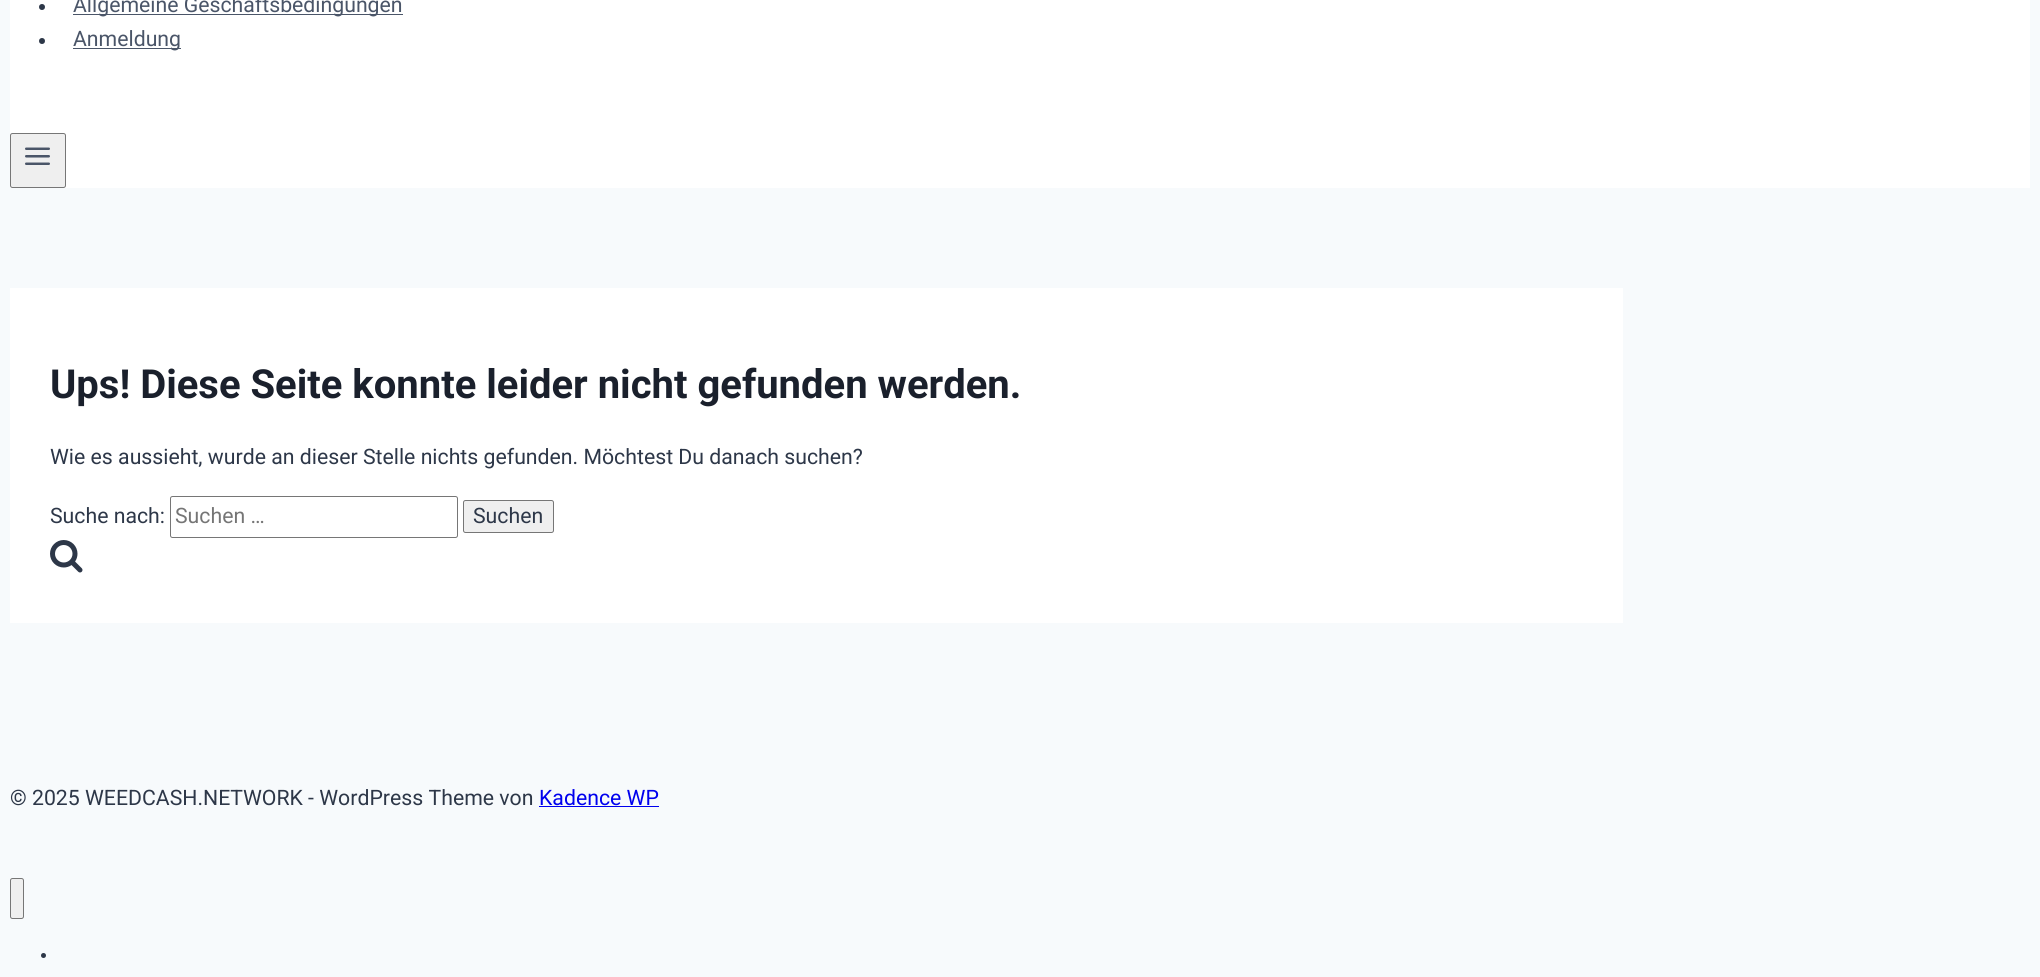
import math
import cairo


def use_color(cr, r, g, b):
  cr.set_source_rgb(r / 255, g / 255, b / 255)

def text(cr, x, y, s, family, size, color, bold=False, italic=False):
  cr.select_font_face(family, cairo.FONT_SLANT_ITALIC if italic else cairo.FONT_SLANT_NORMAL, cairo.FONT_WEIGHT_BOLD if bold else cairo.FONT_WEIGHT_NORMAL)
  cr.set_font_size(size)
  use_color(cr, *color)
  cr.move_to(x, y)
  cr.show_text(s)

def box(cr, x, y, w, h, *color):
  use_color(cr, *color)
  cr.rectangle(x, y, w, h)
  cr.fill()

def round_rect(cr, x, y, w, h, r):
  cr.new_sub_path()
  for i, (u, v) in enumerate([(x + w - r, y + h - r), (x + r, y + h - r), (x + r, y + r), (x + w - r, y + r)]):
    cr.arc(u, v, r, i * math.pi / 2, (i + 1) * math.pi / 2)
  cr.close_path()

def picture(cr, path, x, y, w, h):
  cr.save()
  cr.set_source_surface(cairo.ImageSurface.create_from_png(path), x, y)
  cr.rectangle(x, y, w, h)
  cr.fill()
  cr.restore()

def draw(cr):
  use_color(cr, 247, 250, 252)
  cr.paint()
  box(cr, 10, 0, 2020, 188, 255, 255, 255)
  use_color(cr, 45, 55, 72)
  cr.arc(42, 7, 3, 0, 2 * math.pi)
  cr.fill()
  box(cr, 73, 14, 330, 1, 74, 85, 104)
  use_color(cr, 45, 55, 72)
  cr.arc(42, 41, 3, 0, 2 * math.pi)
  cr.fill()
  box(cr, 73, 48, 108, 1, 74, 85, 104)
  use_color(cr, 239, 239, 239)
  round_rect(cr, 10.5, 133.5, 55, 54, 2)
  cr.fill_preserve()
  use_color(cr, 118, 118, 118)
  cr.set_line_width(1)
  cr.stroke()
  picture(cr, "img_01.png", 25, 147, 25, 18)
  box(cr, 10, 288, 1613, 335, 255, 255, 255)
  round_rect(cr, 170.5, 496.5, 287, 41, 2)
  use_color(cr, 118, 118, 118)
  cr.stroke()
  use_color(cr, 239, 239, 239)
  round_rect(cr, 463.5, 500.5, 90, 32, 2)
  cr.fill_preserve()
  use_color(cr, 118, 118, 118)
  cr.stroke()
  picture(cr, "img_02.png", 50, 540, 33, 33)
  box(cr, 539, 806, 120, 1, 0, 0, 238)
  use_color(cr, 239, 239, 239)
  round_rect(cr, 10.5, 878.5, 13, 40, 2)
  cr.fill_preserve()
  use_color(cr, 118, 118, 118)
  cr.stroke()
  use_color(cr, 45, 55, 72)
  cr.arc(43.5, 955.5, 2.5, 0, 2 * math.pi)
  cr.fill()
  text(cr, 73, 12, "Allgemeine Geschäftsbedingungen", "Roboto", 21.25, (74, 85, 104))
  text(cr, 73, 46, "Anmeldung", "Roboto", 21.25, (74, 85, 104))
  text(cr, 50, 398, "Ups! Diese Seite konnte leider nicht gefunden werden.", "Roboto", 40, (26, 32, 44), bold=True)
  text(cr, 50, 464, "Wie es aussieht, wurde an dieser Stelle nichts gefunden. Möchtest Du danach suchen?", "Roboto", 21.25, (45, 55, 72))
  text(cr, 50, 523, "Suche nach:", "Roboto", 21.25, (45, 55, 72))
  text(cr, 175, 523, "Suchen …", "Roboto", 21.25, (117, 117, 117))
  text(cr, 473, 523, "Suchen", "Roboto", 21.25, (45, 55, 72))
  text(cr, 10, 805, "© 2025 WEEDCASH.NETWORK - WordPress Theme von", "Roboto", 21.25, (45, 55, 72))
  text(cr, 539, 805, "Kadence WP", "Roboto", 21.25, (0, 0, 238))


surface = cairo.ImageSurface(cairo.FORMAT_RGB24, 2040, 977)
cr = cairo.Context(surface)
options = cairo.FontOptions()
options.set_hint_metrics(cairo.HINT_METRICS_OFF)
options.set_hint_style(cairo.HINT_STYLE_NONE)
cr.set_font_options(options)
cr.set_miter_limit(4)
draw(cr)
surface.write_to_png("out.png")
